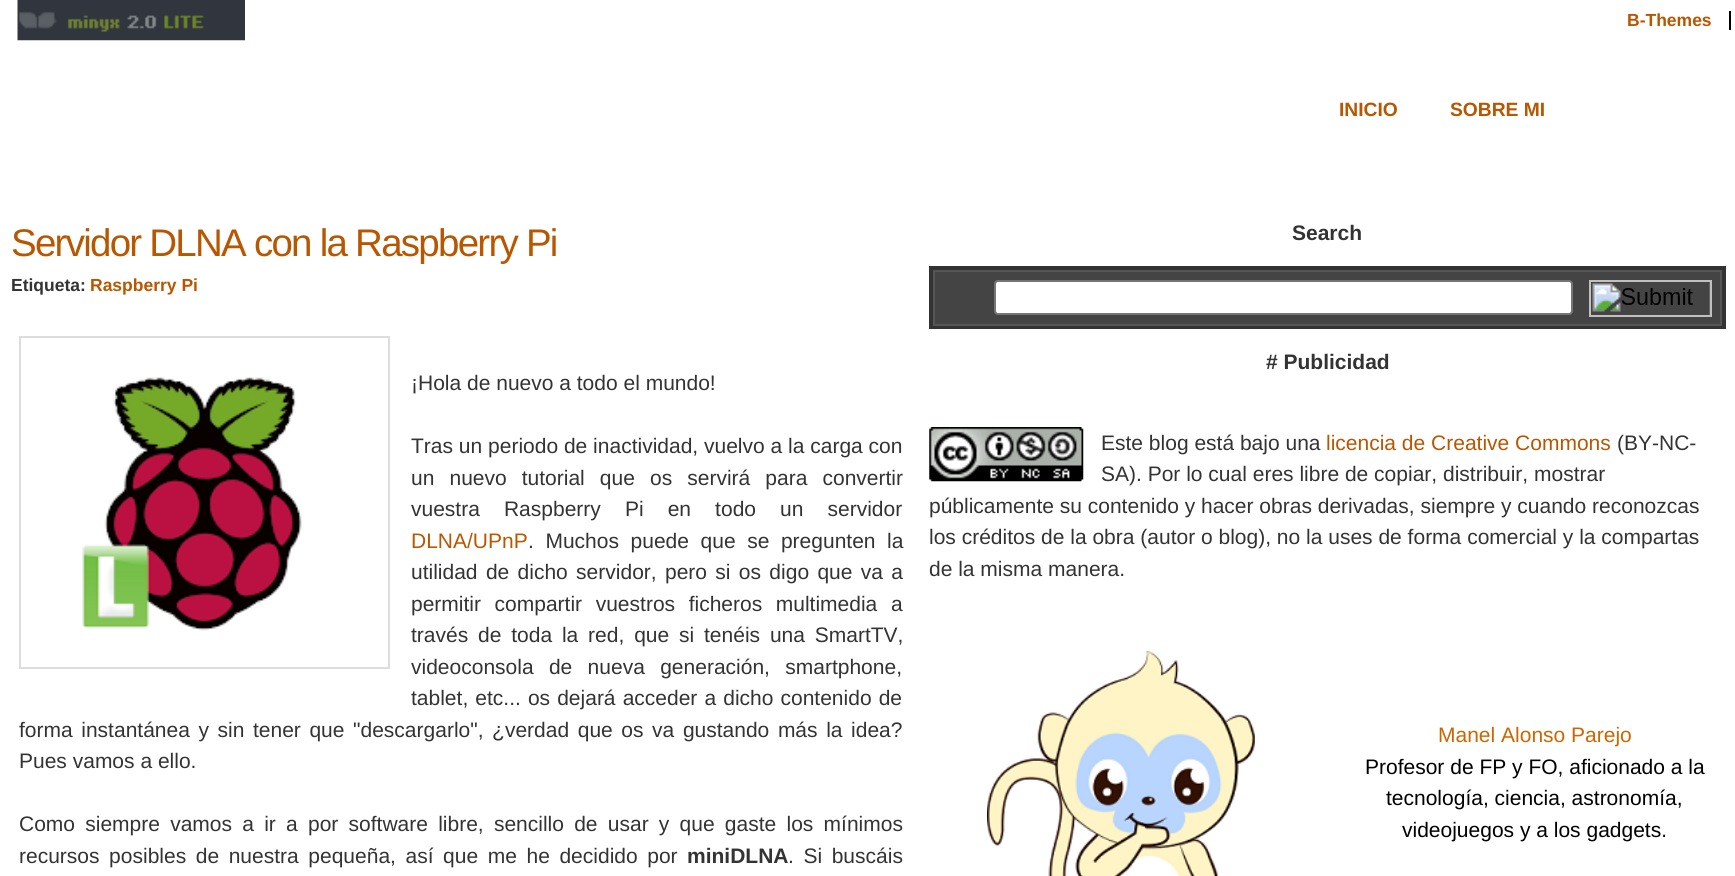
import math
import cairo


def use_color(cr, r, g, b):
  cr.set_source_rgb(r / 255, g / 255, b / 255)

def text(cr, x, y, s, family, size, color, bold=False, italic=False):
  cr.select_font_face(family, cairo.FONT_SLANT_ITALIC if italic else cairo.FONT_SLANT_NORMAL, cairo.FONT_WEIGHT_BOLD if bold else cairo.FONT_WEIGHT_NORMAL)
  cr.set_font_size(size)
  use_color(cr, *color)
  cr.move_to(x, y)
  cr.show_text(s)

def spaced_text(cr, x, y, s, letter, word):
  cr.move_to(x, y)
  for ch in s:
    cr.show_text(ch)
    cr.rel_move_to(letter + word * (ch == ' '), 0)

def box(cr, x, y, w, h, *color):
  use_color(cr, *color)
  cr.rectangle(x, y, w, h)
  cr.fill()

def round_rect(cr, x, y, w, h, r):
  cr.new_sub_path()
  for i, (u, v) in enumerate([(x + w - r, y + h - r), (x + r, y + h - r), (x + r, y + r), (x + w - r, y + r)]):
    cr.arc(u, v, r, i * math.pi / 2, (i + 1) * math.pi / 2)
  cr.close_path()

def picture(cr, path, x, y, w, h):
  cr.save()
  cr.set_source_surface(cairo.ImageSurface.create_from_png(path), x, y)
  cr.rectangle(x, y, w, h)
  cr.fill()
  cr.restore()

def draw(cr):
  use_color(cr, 255, 255, 255)
  cr.paint()
  picture(cr, "img_01.png", 17, 0, 228, 41)
  box(cr, 1729, 11, 2, 19, 0, 0, 0)
  cr.rectangle(20, 337, 369, 331)
  use_color(cr, 221, 221, 221)
  cr.stroke()
  picture(cr, "img_02.png", 82, 377, 220, 254)
  box(cr, 935, 272, 785, 52, 68, 68, 68)
  cr.rectangle(931, 268, 793, 59)
  use_color(cr, 51, 51, 51)
  cr.set_line_width(4)
  cr.stroke()
  cr.rectangle(934, 271, 787, 54)
  use_color(cr, 86, 86, 86)
  cr.set_line_width(2)
  cr.stroke()
  use_color(cr, 255, 255, 255)
  round_rect(cr, 995, 281, 577, 33, 3)
  cr.fill_preserve()
  use_color(cr, 118, 118, 118)
  cr.stroke()
  picture(cr, "img_03.png", 1592, 282, 118, 33)
  cr.rectangle(1590, 281, 121, 35)
  use_color(cr, 192, 192, 192)
  cr.stroke()
  picture(cr, "img_04.png", 929, 427, 155, 55)
  picture(cr, "img_05.png", 987, 651, 268, 225)
  text(cr, 1627, 26, "B-Themes", "Liberation Sans", 17.5, (184, 87, 0), bold=True)
  text(cr, 1339, 116, "INICIO", "Liberation Sans", 19.25, (184, 87, 0), bold=True)
  text(cr, 1450, 116, "SOBRE MI", "Liberation Sans", 19.25, (184, 87, 0), bold=True)
  cr.select_font_face("Liberation Sans")
  cr.set_font_size(38.5)
  spaced_text(cr, 11, 256, "Servidor DLNA con la Raspberry Pi", -1.75, 0)
  text(cr, 11, 291, "Etiqueta:", "Liberation Sans", 17.5, (51, 51, 51), bold=True)
  text(cr, 90, 291, "Raspberry Pi", "Liberation Sans", 17.5, (184, 87, 0), bold=True)
  text(cr, 411, 390, "¡Hola de nuevo a todo el mundo!", "Liberation Sans", 21, (51, 51, 51))
  text(cr, 411, 453, "Tras un periodo de inactividad, vuelvo a la carga con", "Liberation Sans", 21, (51, 51, 51))
  spaced_text(cr, 411, 485, "un nuevo tutorial que os servirá para convertir", 0, 9.25)
  spaced_text(cr, 411, 516, "vuestra Raspberry Pi en todo un servidor", 0, 18.25)
  text(cr, 411, 548, "DLNA/UPnP", "Liberation Sans", 21, (184, 87, 0))
  use_color(cr, 51, 51, 51)
  spaced_text(cr, 528, 548, ". Muchos puede que se pregunten la", 0, 5.75)
  spaced_text(cr, 411, 579, "utilidad de dicho servidor, pero si os digo que va a", 0, 2.5)
  spaced_text(cr, 411, 611, "permitir compartir vuestros ficheros multimedia a", 0, 7.75)
  spaced_text(cr, 411, 642, "través de toda la red, que si tenéis una SmartTV,", 0, 4)
  spaced_text(cr, 411, 674, "videoconsola de nueva generación, smartphone,", 0, 9.5)
  spaced_text(cr, 411, 705, "tablet, etc... os dejará acceder a dicho contenido de", 0, 1.25)
  spaced_text(cr, 19, 737, "forma instantánea y sin tener que \"descargarlo\", ¿verdad que os va gustando más la idea?", 0, 2.75)
  text(cr, 19, 768, "Pues vamos a ello.", "Liberation Sans", 21, (51, 51, 51))
  spaced_text(cr, 19, 831, "Como siempre vamos a ir a por software libre, sencillo de usar y que gaste los mínimos", 0, 4.4)
  spaced_text(cr, 19, 863, "recursos posibles de nuestra pequeña, así que me he decidido por", 0, 3.75)
  text(cr, 687, 863, "miniDLNA", "Liberation Sans", 21, (51, 51, 51), bold=True)
  cr.select_font_face("Liberation Sans")
  spaced_text(cr, 788, 863, ". Si buscáis", 0, 3.75)
  text(cr, 1292, 240, "Search", "Liberation Sans", 21, (51, 51, 51), bold=True)
  text(cr, 1266, 369, "# Publicidad", "Liberation Sans", 21, (51, 51, 51), bold=True)
  text(cr, 1101, 450, "Este blog está bajo una", "Liberation Sans", 21, (51, 51, 51))
  text(cr, 1326, 450, "licencia de Creative Commons", "Liberation Sans", 21, (184, 87, 0))
  text(cr, 1617, 450, "(BY-NC-", "Liberation Sans", 21, (51, 51, 51))
  text(cr, 1101, 481, "SA). Por lo cual eres libre de copiar, distribuir, mostrar", "Liberation Sans", 21, (51, 51, 51))
  text(cr, 929, 513, "públicamente su contenido y hacer obras derivadas, siempre y cuando reconozcas", "Liberation Sans", 21, (51, 51, 51))
  text(cr, 929, 544, "los créditos de la obra (autor o blog), no la uses de forma comercial y la compartas", "Liberation Sans", 21, (51, 51, 51))
  text(cr, 929, 576, "de la misma manera.", "Liberation Sans", 21, (51, 51, 51))
  text(cr, 1438, 742, "Manel Alonso Parejo", "Liberation Sans", 21, (204, 102, 0))
  text(cr, 1365, 774, "Profesor de FP y FO, aficionado a la", "Liberation Sans", 21, (0, 0, 0))
  text(cr, 1386, 805, "tecnología, ciencia, astronomía,", "Liberation Sans", 21, (0, 0, 0))
  text(cr, 1402, 837, "videojuegos y a los gadgets.", "Liberation Sans", 21, (0, 0, 0))


surface = cairo.ImageSurface(cairo.FORMAT_RGB24, 1735, 876)
cr = cairo.Context(surface)
options = cairo.FontOptions()
options.set_hint_metrics(cairo.HINT_METRICS_OFF)
options.set_hint_style(cairo.HINT_STYLE_NONE)
cr.set_font_options(options)
cr.set_miter_limit(4)
draw(cr)
surface.write_to_png("out.png")
